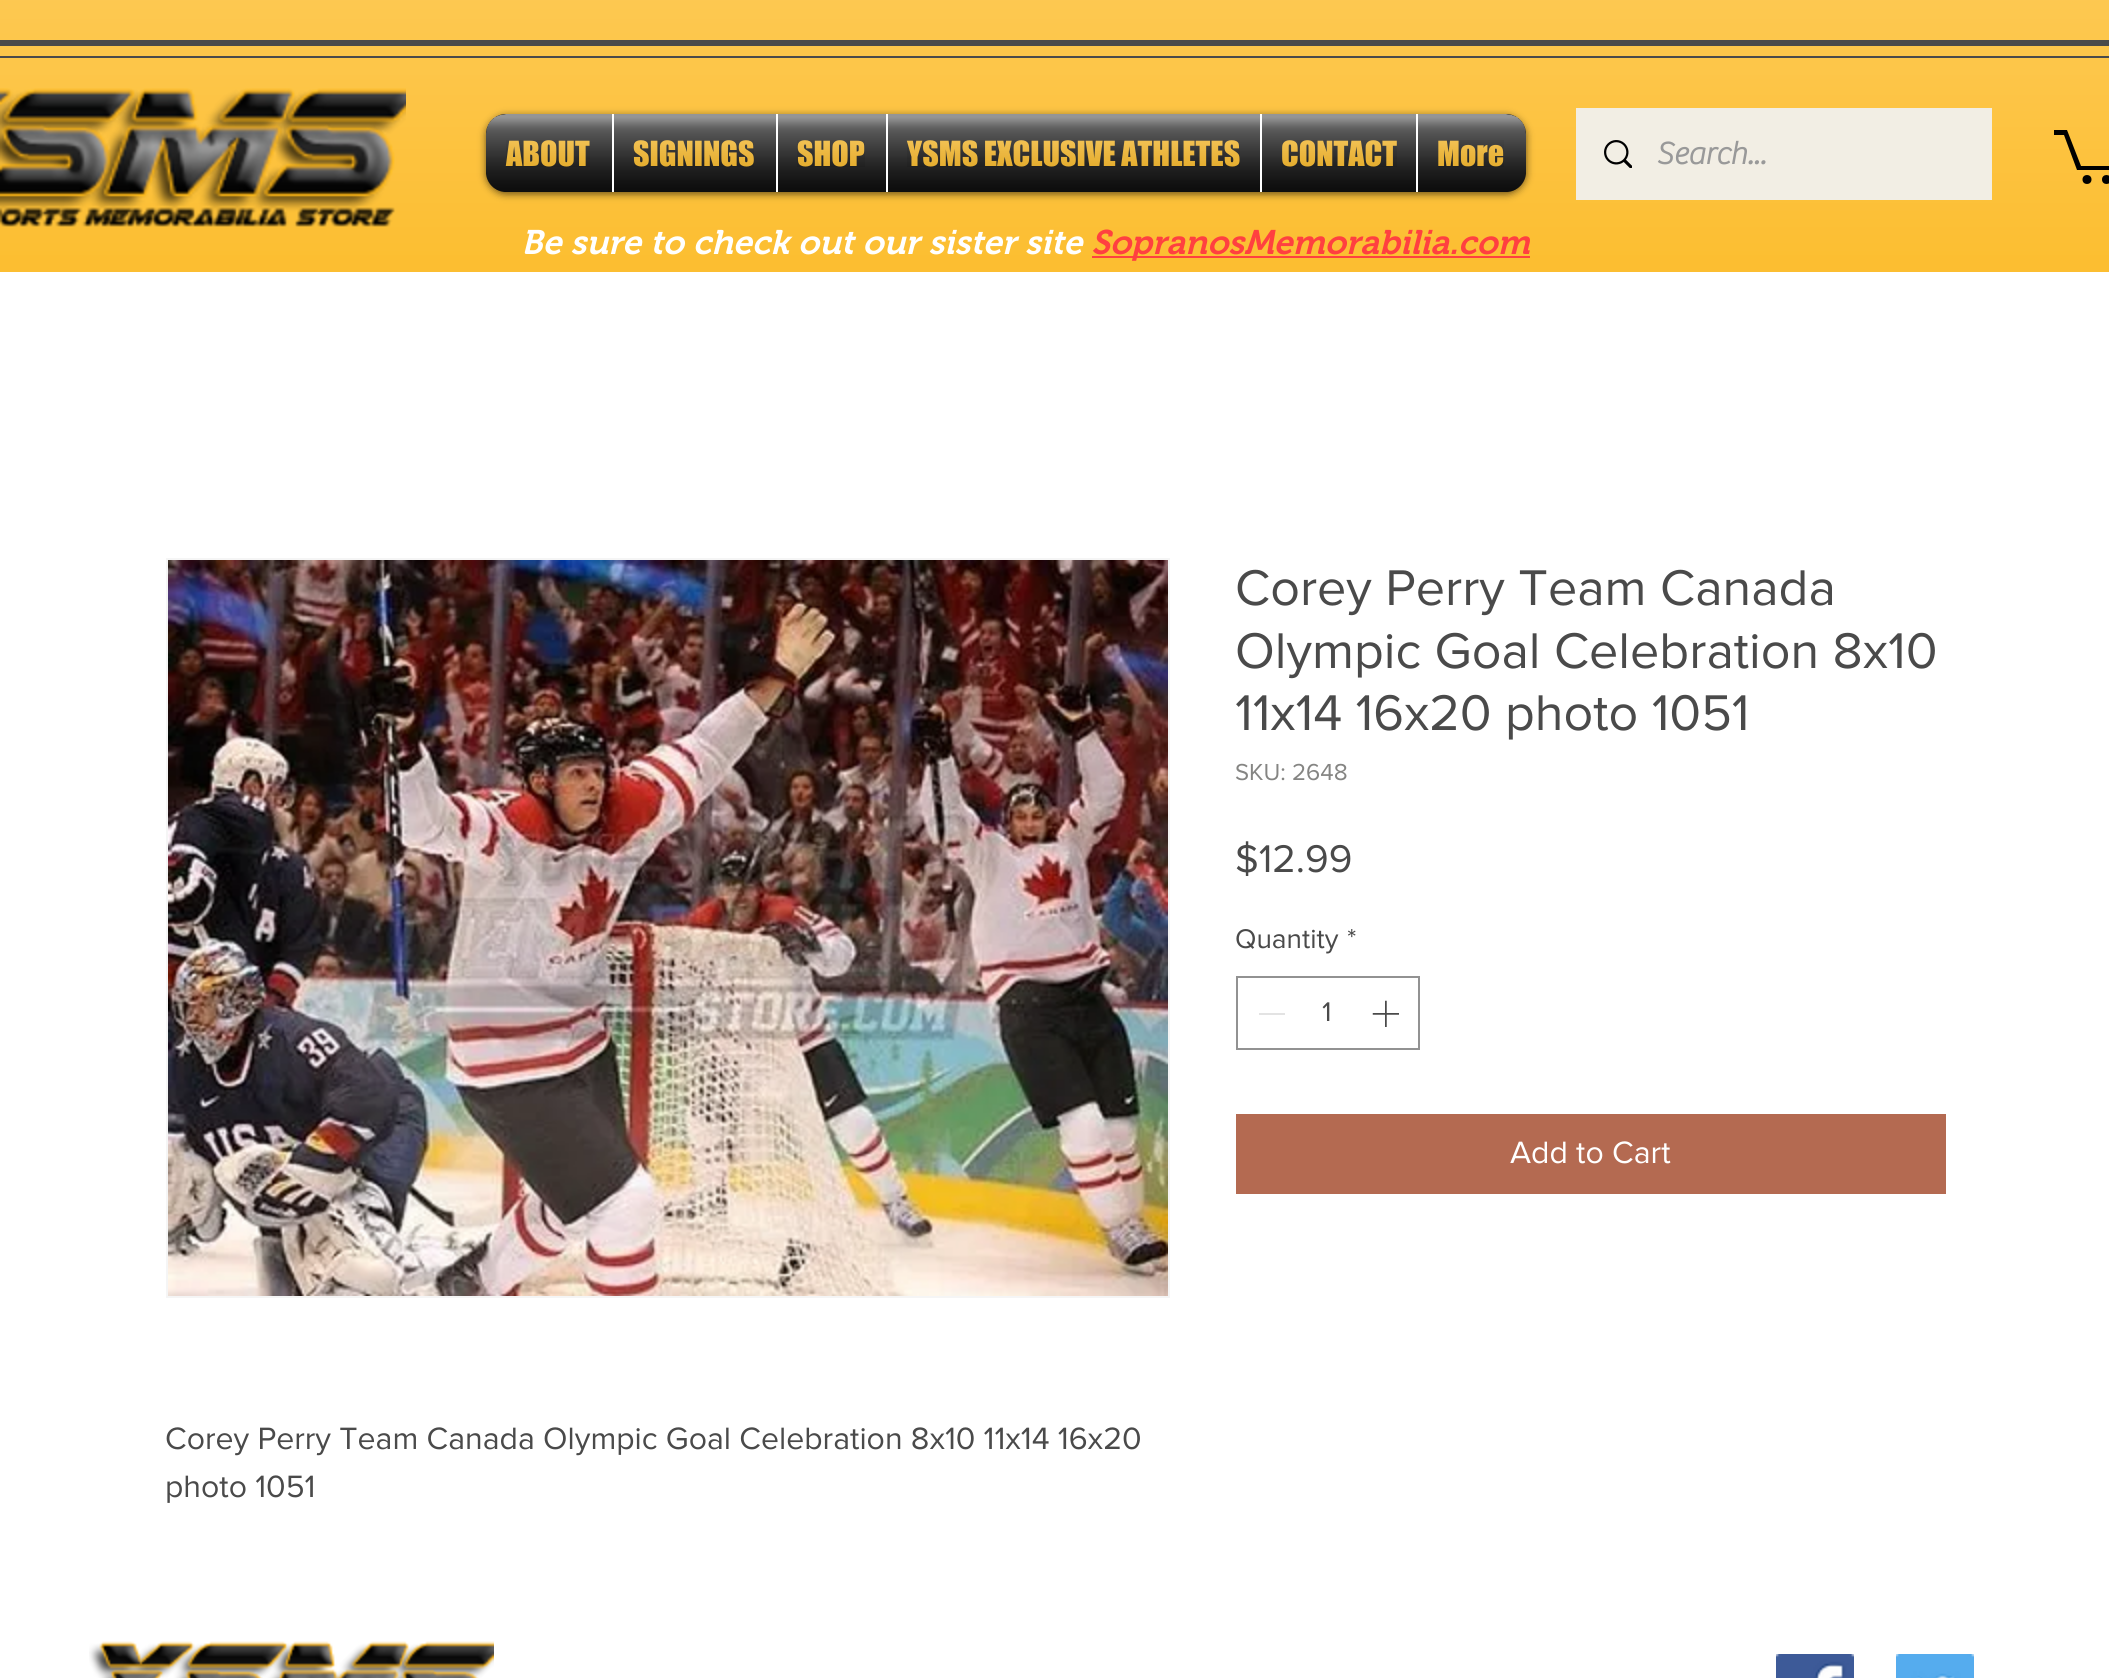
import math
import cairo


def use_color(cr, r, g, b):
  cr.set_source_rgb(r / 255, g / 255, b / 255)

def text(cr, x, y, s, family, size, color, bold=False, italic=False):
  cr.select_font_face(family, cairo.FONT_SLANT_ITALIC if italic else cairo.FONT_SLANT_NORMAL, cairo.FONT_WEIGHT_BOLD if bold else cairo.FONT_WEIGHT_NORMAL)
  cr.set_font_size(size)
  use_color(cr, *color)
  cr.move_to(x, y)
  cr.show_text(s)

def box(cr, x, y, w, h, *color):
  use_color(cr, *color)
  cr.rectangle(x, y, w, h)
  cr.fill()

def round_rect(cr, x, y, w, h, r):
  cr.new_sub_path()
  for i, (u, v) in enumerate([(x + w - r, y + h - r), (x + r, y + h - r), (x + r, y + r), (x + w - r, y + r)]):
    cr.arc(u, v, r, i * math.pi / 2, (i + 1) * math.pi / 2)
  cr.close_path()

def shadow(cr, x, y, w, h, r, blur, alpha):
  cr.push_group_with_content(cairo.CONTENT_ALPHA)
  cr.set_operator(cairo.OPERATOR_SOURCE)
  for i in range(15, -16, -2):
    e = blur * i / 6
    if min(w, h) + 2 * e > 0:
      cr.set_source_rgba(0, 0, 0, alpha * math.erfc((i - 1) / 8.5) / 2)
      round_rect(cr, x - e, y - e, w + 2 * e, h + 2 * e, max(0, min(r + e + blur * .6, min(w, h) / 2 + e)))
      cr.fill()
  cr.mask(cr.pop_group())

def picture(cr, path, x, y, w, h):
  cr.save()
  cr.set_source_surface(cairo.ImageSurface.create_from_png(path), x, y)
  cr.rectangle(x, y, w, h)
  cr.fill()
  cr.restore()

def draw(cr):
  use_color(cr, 255, 255, 255)
  cr.paint()
  box(cr, 0, 0, 2109, 272, 252, 181, 20)
  picture(cr, "img_01.png", 0, 0, 2109, 272)
  box(cr, 0, 40, 2109, 6, 74, 74, 74)
  box(cr, 0, 56, 2109, 2, 74, 74, 74)
  picture(cr, "img_02.png", 0, 88, 406, 139)
  use_color(cr, 0, 0, 0)
  shadow(cr, 486, 116, 1040, 78, 20, 4, 0.6)
  picture(cr, "img_03.png", 486, 114, 1040, 78)
  picture(cr, "img_04.png", 491, 185, 1030, 7)
  use_color(cr, 0, 0, 0)
  cr.new_path()
  cr.move_to(506, 114)
  cr.line_to(612, 114)
  cr.line_to(612, 192)
  cr.line_to(506, 192)
  cr.curve_to(495, 192, 486, 183, 486, 172)
  cr.line_to(486, 134)
  cr.curve_to(486, 123, 495, 114, 506, 114)
  cr.close_path()
  cr.fill()
  box(cr, 614, 114, 162, 78, 0, 0, 0)
  box(cr, 612, 114, 2, 78, 255, 255, 255)
  box(cr, 778, 114, 108, 78, 0, 0, 0)
  box(cr, 776, 114, 2, 78, 255, 255, 255)
  box(cr, 888, 114, 372, 78, 0, 0, 0)
  box(cr, 886, 114, 2, 78, 255, 255, 255)
  box(cr, 1262, 114, 154, 78, 0, 0, 0)
  box(cr, 1260, 114, 2, 78, 255, 255, 255)
  use_color(cr, 0, 0, 0)
  cr.new_path()
  cr.move_to(1416, 114)
  cr.line_to(1506, 114)
  cr.curve_to(1517, 114, 1526, 123, 1526, 134)
  cr.line_to(1526, 172)
  cr.curve_to(1526, 183, 1517, 192, 1506, 192)
  cr.line_to(1416, 192)
  cr.close_path()
  cr.fill()
  box(cr, 1416, 114, 2, 78, 255, 255, 255)
  box(cr, 1576, 108, 416, 92, 242, 238, 228)
  picture(cr, "img_17.png", 1604, 140, 28, 28)
  use_color(cr, 0, 0, 0)
  cr.new_path()
  cr.move_to(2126, 144)
  cr.line_to(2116, 170)
  cr.line_to(2077, 170)
  cr.line_to(2064, 135)
  cr.line_to(2054, 135)
  cr.line_to(2054, 130)
  cr.line_to(2067, 130)
  cr.line_to(2081, 166)
  cr.line_to(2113, 166)
  cr.line_to(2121, 144)
  cr.fill()
  cr.arc(2106.5, 179.5, 4.5, 0, 2 * math.pi)
  cr.fill()
  cr.arc(2087, 179.5, 4.5, 0, 2 * math.pi)
  cr.fill()
  box(cr, 1092, 256, 438, 2, 255, 64, 64)
  cr.rectangle(1237, 977, 182, 72)
  use_color(cr, 146, 146, 146)
  cr.stroke()
  box(cr, 1259, 1013, 26, 2, 227, 227, 227)
  picture(cr, "img_18.png", 1372, 1000, 27, 27)
  box(cr, 1236, 1114, 710, 80, 180, 106, 81)
  cr.rectangle(167, 559, 1002, 738)
  use_color(cr, 245, 245, 245)
  cr.stroke()
  picture(cr, "img_19.png", 168, 560, 1000, 736)
  picture(cr, "img_20.png", 89, 1641, 405, 37)
  picture(cr, "img_21.png", 1776, 1654, 78, 24)
  picture(cr, "img_22.png", 1896, 1654, 78, 24)
  text(cr, 506, 166, "ABOUT", "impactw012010", 32, (252, 181, 20))
  picture(cr, "img_05.png", 486, 114, 126, 78)
  picture(cr, "img_06.png", 506, 140, 84, 27)
  text(cr, 633, 166, "SIGNINGS", "impactw012010", 32, (252, 181, 20))
  picture(cr, "img_07.png", 614, 114, 162, 78)
  picture(cr, "img_08.png", 634, 140, 120, 27)
  text(cr, 797, 166, "SHOP", "impactw012010", 32, (252, 181, 20))
  picture(cr, "img_09.png", 778, 114, 108, 78)
  picture(cr, "img_10.png", 797, 140, 68, 27)
  text(cr, 907, 166, "YSMS EXCLUSIVE ATHLETES", "impactw012010", 32, (252, 181, 20))
  picture(cr, "img_11.png", 888, 114, 372, 78)
  picture(cr, "img_12.png", 907, 140, 333, 27)
  text(cr, 1281, 166, "CONTACT", "impactw012010", 32, (252, 181, 20))
  picture(cr, "img_13.png", 1262, 114, 154, 78)
  picture(cr, "img_14.png", 1282, 140, 115, 27)
  text(cr, 1437, 166, "More", "impactw012010", 32, (252, 181, 20))
  picture(cr, "img_15.png", 1418, 114, 108, 78)
  picture(cr, "img_16.png", 1438, 140, 66, 27)
  text(cr, 1656, 164, "Search...", "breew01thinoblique", 32, (153, 153, 153), bold=True)
  text(cr, 521, 254, "Be sure to check out our sister site", "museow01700 SemiBold", 34, (255, 255, 255), italic=True)
  text(cr, 1091, 254, "SopranosMemorabilia.com", "museow01700 SemiBold", 34, (255, 64, 64), italic=True)
  text(cr, 1235, 605, "Corey Perry Team Canada", "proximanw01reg", 52, (74, 74, 74))
  text(cr, 1235, 668, "Olympic Goal Celebration 8x10", "proximanw01reg", 52, (74, 74, 74))
  text(cr, 1235, 730, "11x14 16x20 photo 1051", "proximanw01reg", 52, (74, 74, 74))
  text(cr, 1235, 780, "SKU: 2648", "proximanw01reg", 24, (133, 133, 131))
  text(cr, 1235, 872, "$12.99", "proximanw01reg", 40, (74, 74, 74))
  text(cr, 1235, 948, "Quantity", "proximanw01reg", 28, (74, 74, 74))
  text(cr, 1347, 948, "*", "proximanw01reg", 28, (74, 74, 74))
  text(cr, 1322, 1021, "1", "proximanw01reg", 28, (74, 74, 74))
  text(cr, 1510, 1163, "Add to Cart", "proximanw01reg", 32, (255, 255, 255))
  text(cr, 165, 1449, "Corey Perry Team Canada Olympic Goal Celebration 8x10 11x14 16x20", "proximanw01reg", 32, (74, 74, 74))
  text(cr, 165, 1497, "photo 1051", "proximanw01reg", 32, (74, 74, 74))


surface = cairo.ImageSurface(cairo.FORMAT_RGB24, 2109, 1678)
cr = cairo.Context(surface)
options = cairo.FontOptions()
options.set_hint_metrics(cairo.HINT_METRICS_OFF)
options.set_hint_style(cairo.HINT_STYLE_NONE)
cr.set_font_options(options)
cr.set_miter_limit(4)
draw(cr)
surface.write_to_png("out.png")
